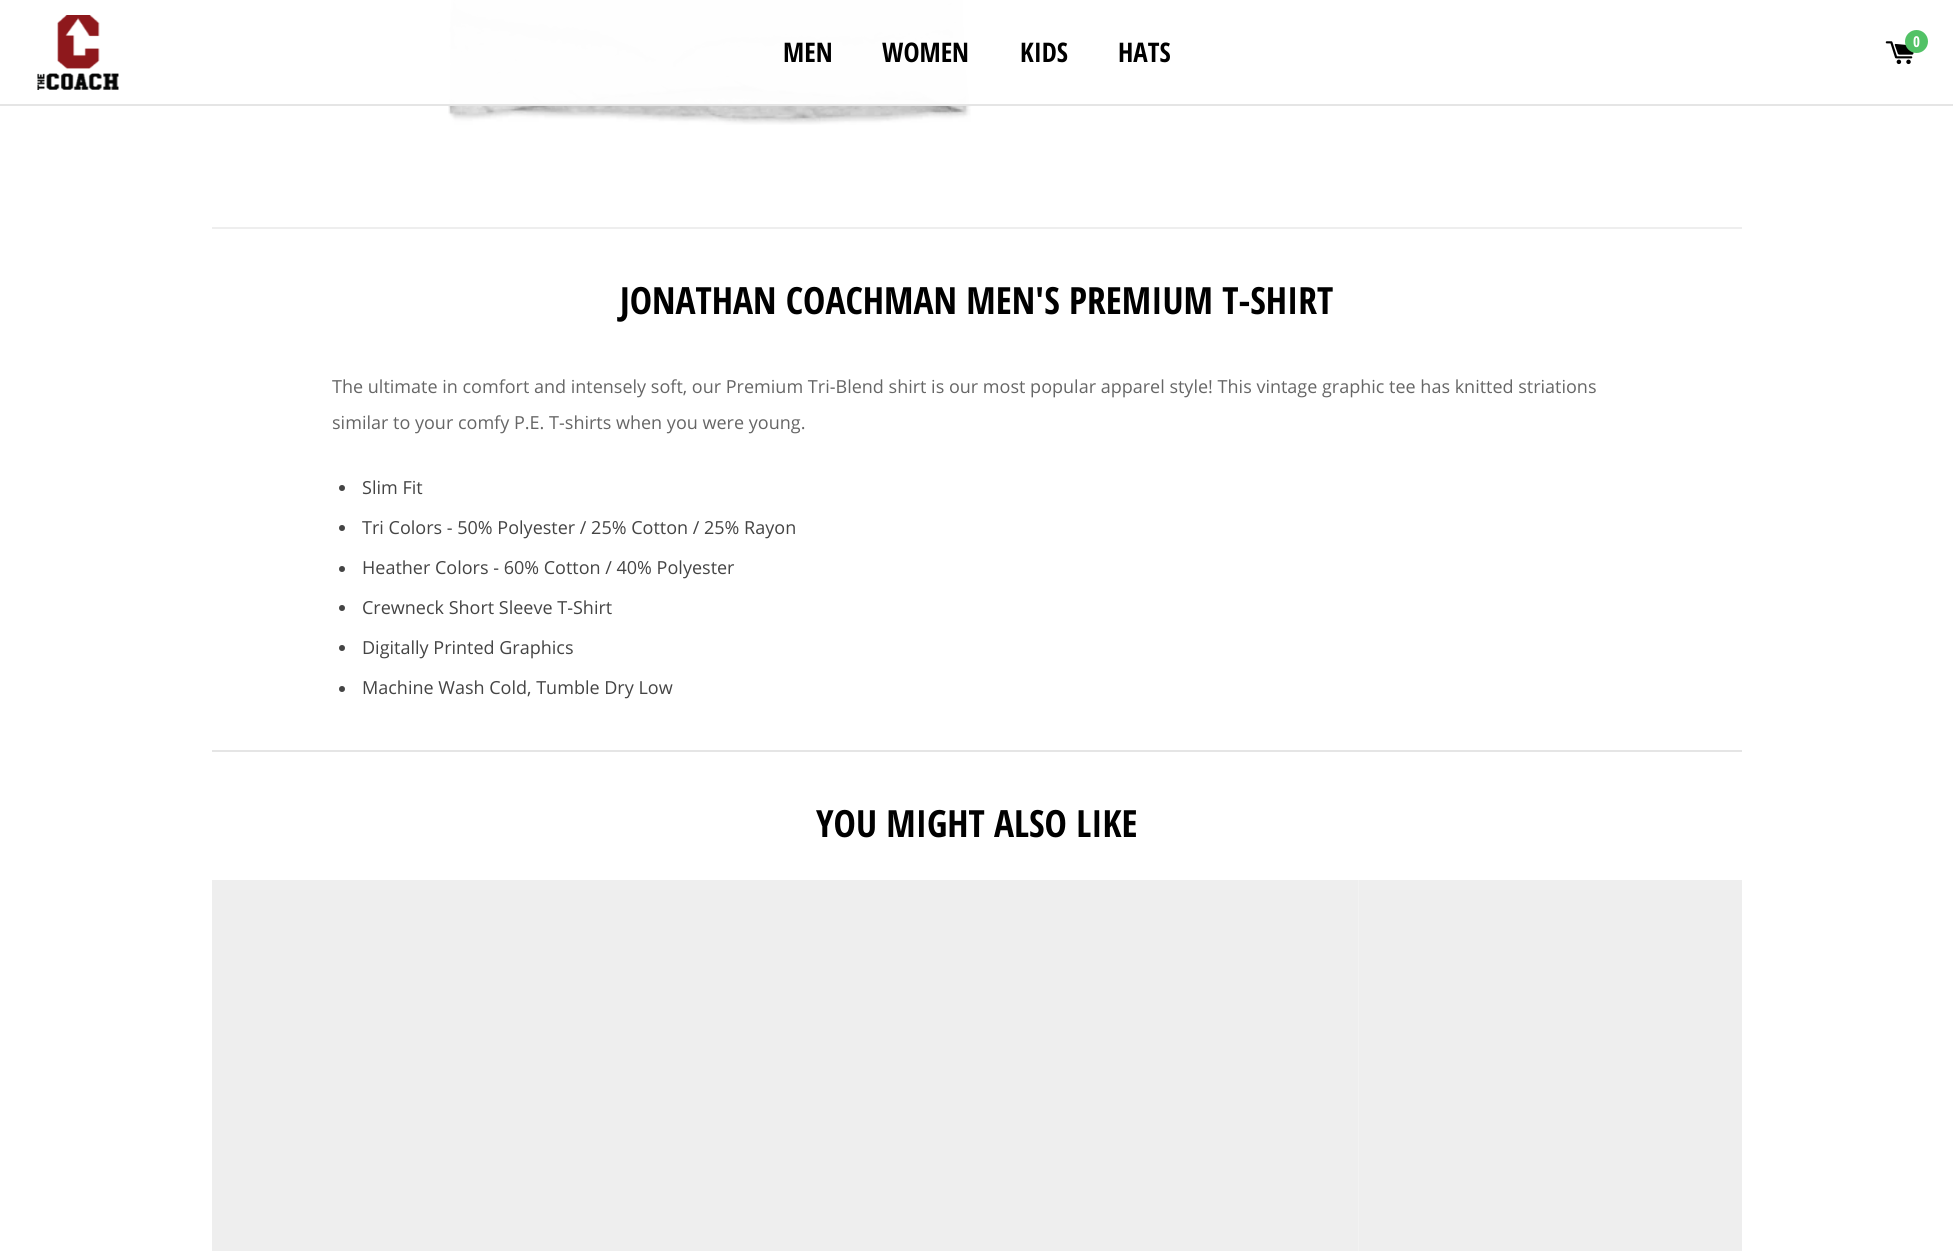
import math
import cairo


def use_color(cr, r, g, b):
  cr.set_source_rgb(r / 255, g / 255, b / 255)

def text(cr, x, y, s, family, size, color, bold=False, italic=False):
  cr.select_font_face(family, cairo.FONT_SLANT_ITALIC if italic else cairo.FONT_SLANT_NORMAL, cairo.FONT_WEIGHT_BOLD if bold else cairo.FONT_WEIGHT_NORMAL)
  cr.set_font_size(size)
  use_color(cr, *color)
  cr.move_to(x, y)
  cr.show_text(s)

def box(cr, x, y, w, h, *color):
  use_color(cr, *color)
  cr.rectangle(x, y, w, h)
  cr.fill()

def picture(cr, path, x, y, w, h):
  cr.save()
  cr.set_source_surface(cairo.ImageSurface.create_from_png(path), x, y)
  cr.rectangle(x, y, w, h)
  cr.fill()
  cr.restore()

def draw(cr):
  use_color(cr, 255, 255, 255)
  cr.paint()
  picture(cr, "img_03.png", 448, 0, 524, 125)
  cr.set_source_rgba(1, 1, 1, 0.97)
  cr.rectangle(448, 0, 524, 104)
  cr.fill()
  box(cr, 0, 104, 1953, 2, 229, 229, 229)
  picture(cr, "img_01.png", 37, 15, 82, 75)
  picture(cr, "img_02.png", 1885, 41, 29, 24)
  use_color(cr, 82, 194, 102)
  cr.arc(1916.5, 41.5, 11.5, 0, 2 * math.pi)
  cr.fill()
  box(cr, 212, 227, 1530, 2, 238, 238, 238)
  use_color(cr, 68, 68, 68)
  cr.arc(342, 488, 3, 0, 2 * math.pi)
  cr.fill()
  cr.arc(342, 528, 3, 0, 2 * math.pi)
  cr.fill()
  cr.arc(342, 569, 3, 0, 2 * math.pi)
  cr.fill()
  cr.arc(342, 608, 3, 0, 2 * math.pi)
  cr.fill()
  cr.arc(342, 648, 3, 0, 2 * math.pi)
  cr.fill()
  cr.arc(342, 689, 3, 0, 2 * math.pi)
  cr.fill()
  box(cr, 212, 750, 1530, 2, 229, 229, 229)
  box(cr, 212, 880, 765, 371, 238, 238, 238)
  picture(cr, "img_04.png", 977, 880, 382, 371)
  box(cr, 1359, 880, 383, 371, 238, 238, 238)
  text(cr, 783, 62, "MEN", "Open Sans Condensed", 27, (0, 0, 0), bold=True)
  text(cr, 882, 62, "WOMEN", "Open Sans Condensed", 27, (0, 0, 0), bold=True)
  text(cr, 1020, 62, "KIDS", "Open Sans Condensed", 27, (0, 0, 0), bold=True)
  text(cr, 1118, 62, "HATS", "Open Sans Condensed", 27, (0, 0, 0), bold=True)
  text(cr, 1913, 47, "0", "Open Sans Condensed", 15, (255, 255, 255), bold=True)
  text(cr, 620, 314, "JONATHAN COACHMAN MEN'S PREMIUM T-SHIRT", "Open Sans Condensed", 37.5, (0, 0, 0), bold=True)
  text(cr, 332, 393, "The ultimate in comfort and intensely soft, our Premium Tri-Blend shirt is our most popular apparel style! This vintage graphic tee has knitted striations", "Open Sans", 18, (102, 102, 102))
  text(cr, 332, 429, "similar to your comfy P.E. T-shirts when you were young.", "Open Sans", 18, (102, 102, 102))
  text(cr, 362, 494, "Slim Fit", "Open Sans", 18, (68, 68, 68))
  text(cr, 362, 534, "Tri Colors - 50% Polyester / 25% Cotton / 25% Rayon", "Open Sans", 18, (68, 68, 68))
  text(cr, 362, 574, "Heather Colors - 60% Cotton / 40% Polyester", "Open Sans", 18, (68, 68, 68))
  text(cr, 362, 614, "Crewneck Short Sleeve T-Shirt", "Open Sans", 18, (68, 68, 68))
  text(cr, 362, 654, "Digitally Printed Graphics", "Open Sans", 18, (68, 68, 68))
  text(cr, 362, 694, "Machine Wash Cold, Tumble Dry Low", "Open Sans", 18, (68, 68, 68))
  text(cr, 816, 837, "YOU MIGHT ALSO LIKE", "Open Sans Condensed", 37.5, (0, 0, 0), bold=True)


surface = cairo.ImageSurface(cairo.FORMAT_RGB24, 1953, 1251)
cr = cairo.Context(surface)
options = cairo.FontOptions()
options.set_hint_metrics(cairo.HINT_METRICS_OFF)
options.set_hint_style(cairo.HINT_STYLE_NONE)
cr.set_font_options(options)
cr.set_miter_limit(4)
draw(cr)
surface.write_to_png("out.png")
